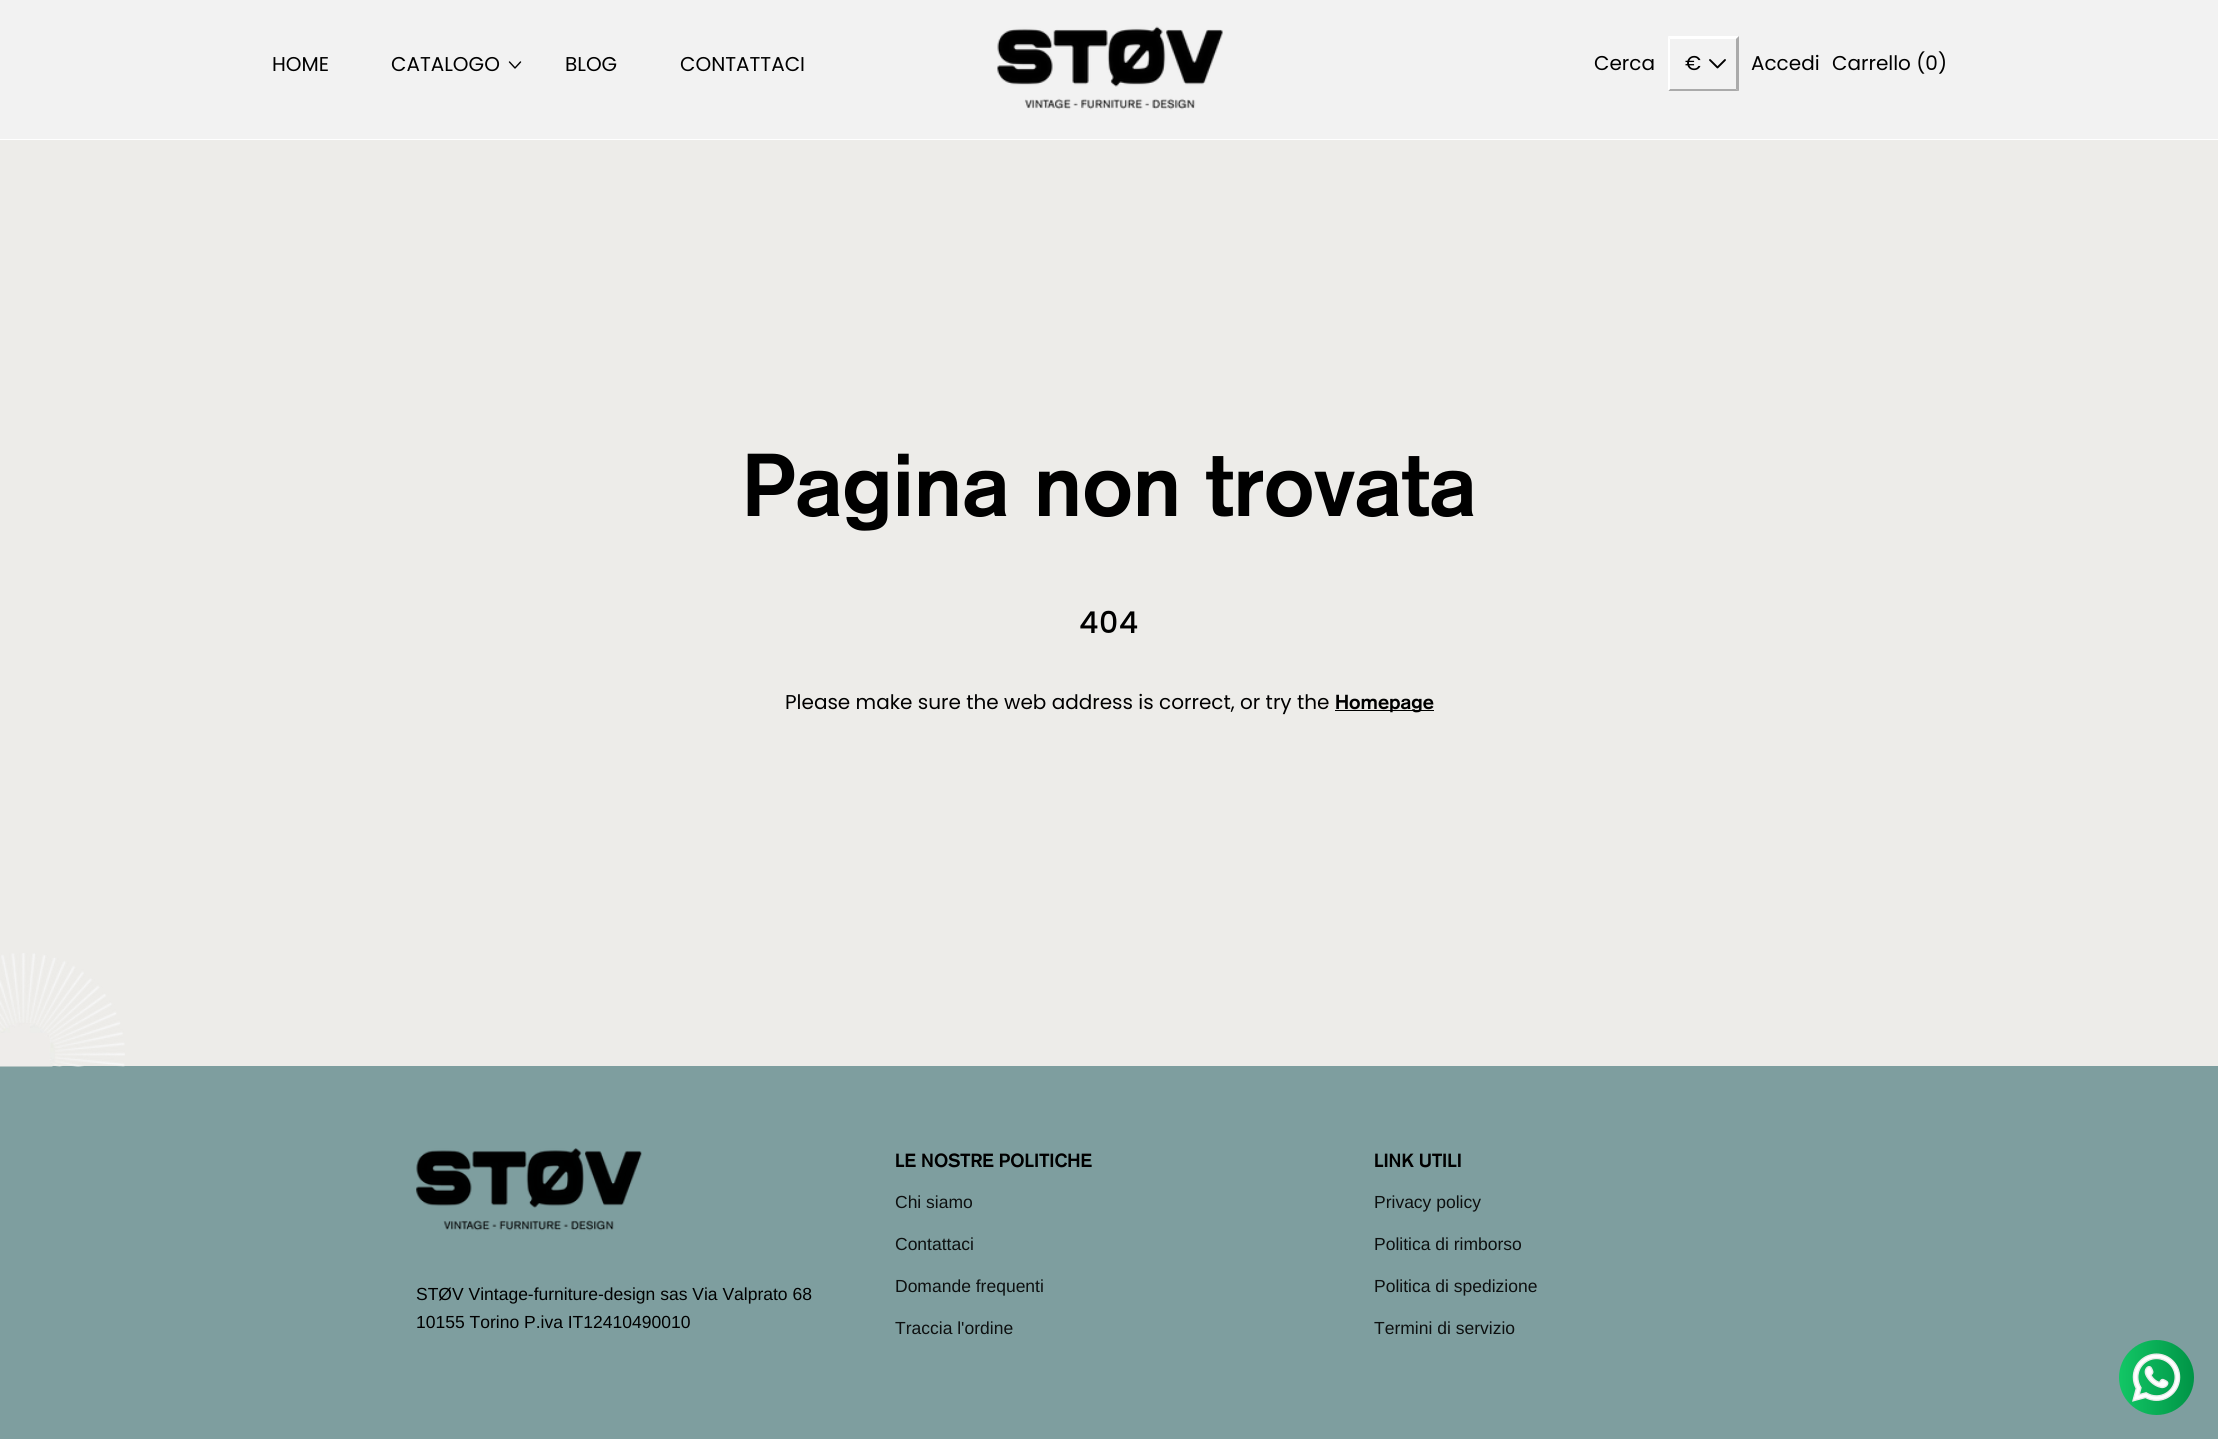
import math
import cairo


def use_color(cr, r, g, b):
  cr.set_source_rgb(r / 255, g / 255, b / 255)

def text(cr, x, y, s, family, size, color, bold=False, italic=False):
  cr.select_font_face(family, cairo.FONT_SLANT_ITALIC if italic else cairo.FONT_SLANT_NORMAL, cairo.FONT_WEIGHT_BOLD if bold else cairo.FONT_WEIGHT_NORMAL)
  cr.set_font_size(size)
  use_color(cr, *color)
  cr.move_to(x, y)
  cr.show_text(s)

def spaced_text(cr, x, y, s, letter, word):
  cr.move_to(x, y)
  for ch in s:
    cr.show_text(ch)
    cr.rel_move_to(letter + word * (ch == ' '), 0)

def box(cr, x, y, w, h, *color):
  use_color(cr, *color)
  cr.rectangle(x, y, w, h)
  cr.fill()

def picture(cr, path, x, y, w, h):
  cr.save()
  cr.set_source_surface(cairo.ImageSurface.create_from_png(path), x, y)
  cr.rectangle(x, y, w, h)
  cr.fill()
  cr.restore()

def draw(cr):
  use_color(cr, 126, 158, 159)
  cr.paint()
  box(cr, 0, 0, 2218, 139, 242, 242, 242)
  box(cr, 0, 139, 2218, 1, 255, 255, 255)
  cr.new_path()
  cr.move_to(509.5, 62)
  cr.line_to(515, 68)
  cr.line_to(520.5, 62)
  use_color(cr, 0, 0, 0)
  cr.set_line_width(1.4)
  cr.set_line_cap(cairo.LINE_CAP_ROUND)
  cr.set_line_join(cairo.LINE_JOIN_ROUND)
  cr.stroke()
  picture(cr, "img_01.png", 997, 26, 226, 84)
  use_color(cr, 255, 255, 255)
  cr.new_path()
  cr.move_to(1668, 36)
  cr.line_to(1739, 36)
  cr.line_to(1736, 39)
  cr.line_to(1670, 39)
  cr.close_path()
  cr.fill()
  use_color(cr, 170, 170, 170)
  cr.new_path()
  cr.move_to(1739, 36)
  cr.line_to(1739, 91)
  cr.line_to(1736, 89)
  cr.line_to(1736, 39)
  cr.close_path()
  cr.fill()
  cr.new_path()
  cr.move_to(1739, 91)
  cr.line_to(1668, 91)
  cr.line_to(1670, 89)
  cr.line_to(1736, 89)
  cr.close_path()
  cr.fill()
  use_color(cr, 255, 255, 255)
  cr.new_path()
  cr.move_to(1668, 91)
  cr.line_to(1668, 36)
  cr.line_to(1670, 39)
  cr.line_to(1670, 89)
  cr.close_path()
  cr.fill()
  cr.new_path()
  cr.move_to(1710, 60)
  cr.line_to(1717.5, 67.5)
  cr.line_to(1725, 60)
  use_color(cr, 0, 0, 0)
  cr.set_line_width(1.9)
  cr.stroke()
  box(cr, 0, 140, 2218, 926, 237, 236, 233)
  picture(cr, "img_02.png", 0, 953, 125, 114)
  box(cr, 1335, 710, 99, 1, 0, 0, 0)
  picture(cr, "img_03.png", 416, 1148, 226, 83)
  gradient = cairo.LinearGradient(2119, 1378, 2194, 1378)
  gradient.add_color_stop_rgba(0.01, 0.071, 0.776, 0.396, 1)
  gradient.add_color_stop_rgba(1, 0, 0.58, 0.275, 1)
  cr.set_source(gradient)
  cr.arc(2156.5, 1377.5, 37.5, 0, 2 * math.pi)
  cr.fill()
  picture(cr, "img_04.png", 2132, 1353, 49, 49)
  text(cr, 272, 71, "HOME", "Poppins", 20, (0, 0, 0))
  text(cr, 391, 71, "CATALOGO", "Poppins", 20, (0, 0, 0))
  text(cr, 565, 71, "BLOG", "Poppins", 20, (0, 0, 0))
  text(cr, 680, 71, "CONTATTACI", "Poppins", 20, (0, 0, 0))
  text(cr, 1594, 70, "Cerca", "Poppins", 20, (0, 0, 0))
  spaced_text(cr, 1685, 70, "€", 1, 0)
  text(cr, 1751, 70, "Accedi", "Poppins", 20, (0, 0, 0))
  text(cr, 1832, 70, "Carrello (0)", "Poppins", 20, (0, 0, 0))
  text(cr, 742, 516, "Pagina non trovata", "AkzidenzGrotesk", 87.5, (0, 0, 0), bold=True)
  cr.select_font_face("Poppins Medium")
  cr.set_font_size(30)
  spaced_text(cr, 1079, 633, "404", 0.5, 0)
  text(cr, 785, 709, "Please make sure the web address is correct, or try the", "Poppins", 20, (0, 0, 0))
  text(cr, 1335, 709, "Homepage", "AkzidenzGrotesk", 20, (0, 0, 0), bold=True)
  text(cr, 416, 1300, "STØV Vintage-furniture-design sas Via Valprato 68", "Liberation Sans", 17.5, (0, 0, 0))
  text(cr, 416, 1328, "10155 Torino P.iva IT12410490010", "Liberation Sans", 17.5, (0, 0, 0))
  text(cr, 895, 1167, "LE NOSTRE POLITICHE", "AkzidenzGrotesk", 18.75, (0, 0, 0), bold=True)
  text(cr, 895, 1208, "Chi siamo", "Liberation Sans", 17.5, (13, 16, 16))
  text(cr, 895, 1250, "Contattaci", "Liberation Sans", 17.5, (13, 16, 16))
  text(cr, 895, 1292, "Domande frequenti", "Liberation Sans", 17.5, (13, 16, 16))
  text(cr, 895, 1334, "Traccia l'ordine", "Liberation Sans", 17.5, (13, 16, 16))
  text(cr, 1374, 1167, "LINK UTILI", "AkzidenzGrotesk", 18.75, (0, 0, 0), bold=True)
  text(cr, 1374, 1208, "Privacy policy", "Liberation Sans", 17.5, (13, 16, 16))
  text(cr, 1374, 1250, "Politica di rimborso", "Liberation Sans", 17.5, (13, 16, 16))
  text(cr, 1374, 1292, "Politica di spedizione", "Liberation Sans", 17.5, (13, 16, 16))
  text(cr, 1374, 1334, "Termini di servizio", "Liberation Sans", 17.5, (13, 16, 16))


surface = cairo.ImageSurface(cairo.FORMAT_RGB24, 2218, 1439)
cr = cairo.Context(surface)
options = cairo.FontOptions()
options.set_hint_metrics(cairo.HINT_METRICS_OFF)
options.set_hint_style(cairo.HINT_STYLE_NONE)
cr.set_font_options(options)
cr.set_miter_limit(4)
draw(cr)
surface.write_to_png("out.png")
